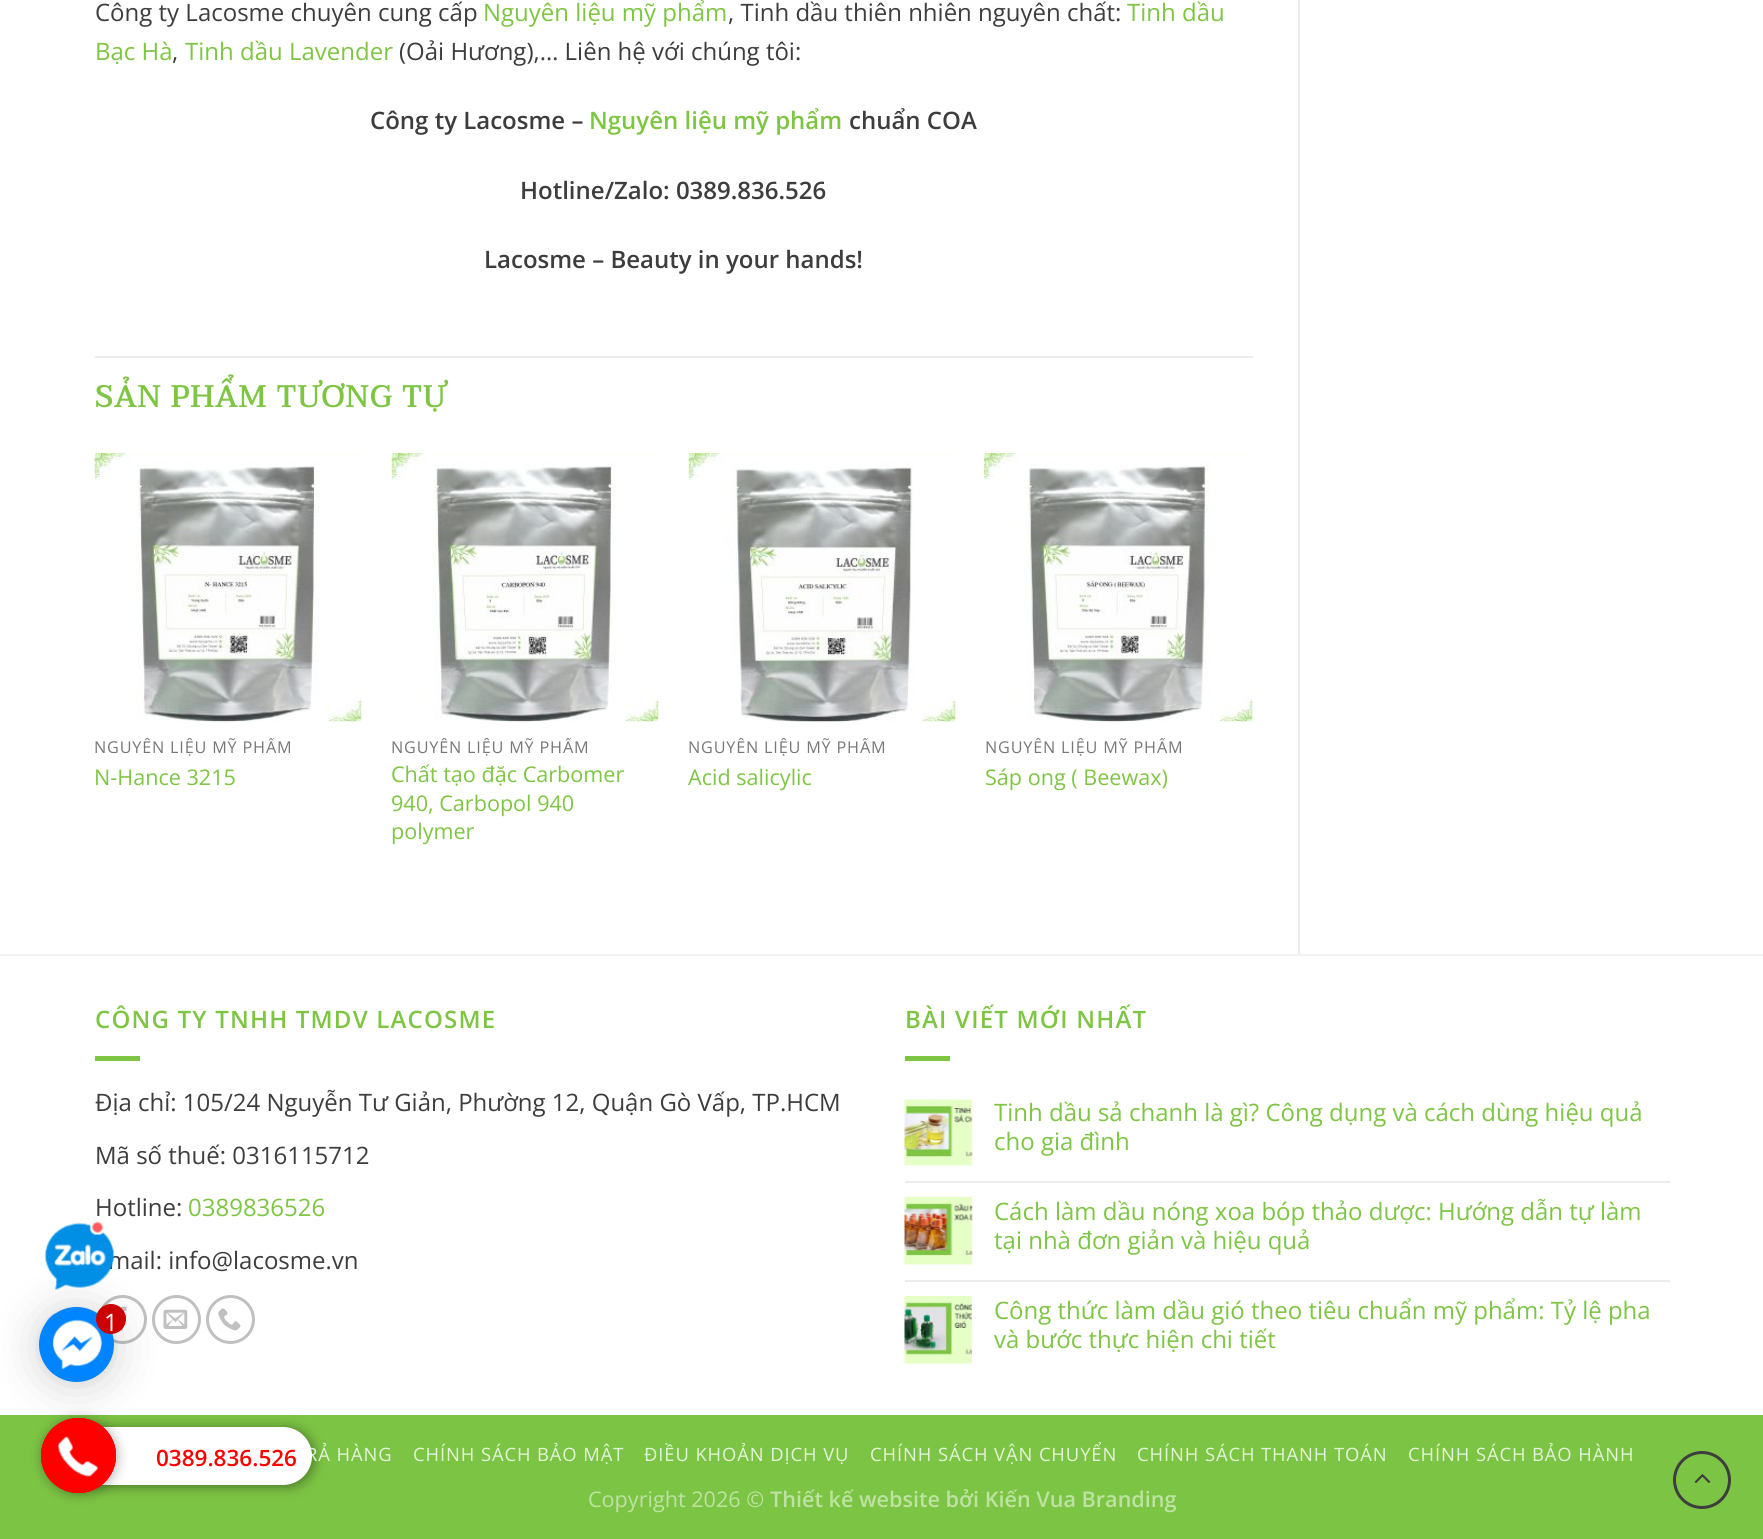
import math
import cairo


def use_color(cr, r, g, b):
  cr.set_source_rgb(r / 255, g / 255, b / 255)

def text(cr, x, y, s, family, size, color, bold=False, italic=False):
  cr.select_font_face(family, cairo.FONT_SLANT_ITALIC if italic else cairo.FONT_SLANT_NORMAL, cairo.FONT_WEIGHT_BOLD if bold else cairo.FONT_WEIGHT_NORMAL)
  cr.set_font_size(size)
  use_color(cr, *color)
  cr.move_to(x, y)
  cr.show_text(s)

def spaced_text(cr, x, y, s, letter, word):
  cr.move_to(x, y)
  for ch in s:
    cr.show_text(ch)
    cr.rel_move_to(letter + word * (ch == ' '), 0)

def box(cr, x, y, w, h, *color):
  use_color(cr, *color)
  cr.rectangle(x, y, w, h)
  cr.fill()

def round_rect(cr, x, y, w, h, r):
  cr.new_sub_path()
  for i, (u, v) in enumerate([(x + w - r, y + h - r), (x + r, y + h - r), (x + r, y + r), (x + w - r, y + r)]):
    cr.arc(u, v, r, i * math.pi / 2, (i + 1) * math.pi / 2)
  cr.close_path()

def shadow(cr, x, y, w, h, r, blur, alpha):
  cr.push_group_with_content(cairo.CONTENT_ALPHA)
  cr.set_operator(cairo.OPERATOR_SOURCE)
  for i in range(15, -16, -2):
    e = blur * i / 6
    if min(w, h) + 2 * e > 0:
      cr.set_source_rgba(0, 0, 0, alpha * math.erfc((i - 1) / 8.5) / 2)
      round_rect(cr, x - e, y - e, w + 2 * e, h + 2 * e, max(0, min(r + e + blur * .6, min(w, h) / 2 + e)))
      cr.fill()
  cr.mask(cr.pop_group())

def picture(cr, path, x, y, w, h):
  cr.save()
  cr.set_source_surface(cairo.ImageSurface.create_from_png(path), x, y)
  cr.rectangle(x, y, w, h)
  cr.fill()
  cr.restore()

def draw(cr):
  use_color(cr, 255, 255, 255)
  cr.paint()
  box(cr, 1298, 0, 2, 954, 236, 236, 236)
  box(cr, 95, 356, 1158, 2, 236, 236, 236)
  picture(cr, "img_02.png", 94, 453, 268, 269)
  picture(cr, "img_03.png", 391, 453, 268, 269)
  picture(cr, "img_04.png", 688, 453, 268, 269)
  picture(cr, "img_05.png", 984, 453, 269, 269)
  box(cr, 0, 954, 1763, 2, 242, 242, 242)
  box(cr, 95, 1056, 45, 5, 126, 197, 68)
  cr.arc(122.5, 1319.5, 23, 0, 2 * math.pi)
  use_color(cr, 192, 192, 192)
  cr.set_line_width(3)
  cr.stroke()
  picture(cr, "img_06.png", 120, 1306, 7, 25)
  cr.arc(176.5, 1319.5, 23, 0, 2 * math.pi)
  cr.stroke()
  picture(cr, "img_07.png", 163, 1309, 25, 20)
  cr.arc(230.5, 1319.5, 23, 0, 2 * math.pi)
  cr.stroke()
  picture(cr, "img_08.png", 218, 1308, 23, 23)
  box(cr, 905, 1056, 45, 5, 126, 197, 68)
  picture(cr, "img_09.png", 904, 1099, 69, 67)
  box(cr, 905, 1181, 765, 2, 236, 236, 236)
  picture(cr, "img_10.png", 904, 1197, 69, 68)
  box(cr, 905, 1280, 765, 2, 236, 236, 236)
  picture(cr, "img_11.png", 904, 1296, 68, 68)
  box(cr, 0, 1415, 1763, 124, 124, 196, 68)
  cr.arc(1702, 1480, 27.5, 0, 2 * math.pi)
  use_color(cr, 61, 61, 61)
  cr.stroke()
  picture(cr, "img_12.png", 1694, 1474, 17, 9)
  use_color(cr, 0, 0, 0)
  shadow(cr, 39, 1308, 75, 75, 37.5, 4.5, 0.06)
  shadow(cr, 50, 1428, 264, 59, 29.5, 6, 0.4)
  text(cr, 95, 21, "Công ty Lacosme chuyên cung cấp", "Open Sans", 24, (61, 61, 61))
  text(cr, 483, 21, "Nguyên liệu mỹ phẩm", "Open Sans", 24, (126, 197, 68))
  text(cr, 728, 21, ", Tinh dầu thiên nhiên nguyên chất:", "Open Sans", 24, (61, 61, 61))
  text(cr, 1127, 21, "Tinh dầu", "Open Sans", 24, (126, 197, 68))
  text(cr, 95, 60, "Bạc Hà", "Open Sans", 24, (126, 197, 68))
  text(cr, 172, 60, ",", "Open Sans", 24, (61, 61, 61))
  text(cr, 185, 60, "Tinh dầu Lavender", "Open Sans", 24, (126, 197, 68))
  text(cr, 399, 60, "(Oải Hương),… Liên hệ với chúng tôi:", "Open Sans", 24, (61, 61, 61))
  text(cr, 370, 129, "Công ty Lacosme –", "Open Sans SemiBold", 24, (61, 61, 61))
  text(cr, 589, 129, "Nguyên liệu mỹ phẩm", "Open Sans SemiBold", 24, (126, 197, 68))
  text(cr, 849, 129, "chuẩn COA", "Open Sans SemiBold", 24, (61, 61, 61))
  text(cr, 520, 199, "Hotline/Zalo: 0389.836.526", "Open Sans SemiBold", 24, (61, 61, 61))
  text(cr, 484, 268, "Lacosme – Beauty in your hands!", "Open Sans SemiBold", 24, (61, 61, 61))
  cr.select_font_face("Taviraj", cairo.FONT_SLANT_NORMAL, cairo.FONT_WEIGHT_BOLD)
  cr.set_font_size(30)
  use_color(cr, 126, 197, 68)
  spaced_text(cr, 95, 407, "SẢN PHẨM TƯƠNG TỰ", 1.5, 0)
  cr.save()
  cr.rectangle(95, 738, 267, 20)
  cr.clip()
  cr.select_font_face("Open Sans")
  cr.set_font_size(16.25)
  use_color(cr, 119, 119, 119)
  spaced_text(cr, 94, 753, "NGUYÊN LIỆU MỸ PHẨM", 0.8, 0)
  cr.restore()
  text(cr, 94, 785, "N-Hance 3215", "Open Sans", 21.6, (126, 197, 68))
  cr.save()
  cr.rectangle(392, 738, 267, 20)
  cr.clip()
  cr.set_font_size(16.25)
  use_color(cr, 119, 119, 119)
  spaced_text(cr, 391, 753, "NGUYÊN LIỆU MỸ PHẨM", 0.8, 0)
  cr.restore()
  text(cr, 391, 782, "Chất tạo đặc Carbomer", "Open Sans", 21.6, (126, 197, 68))
  text(cr, 391, 811, "940, Carbopol 940", "Open Sans", 21.6, (126, 197, 68))
  text(cr, 391, 839, "polymer", "Open Sans", 21.6, (126, 197, 68))
  cr.save()
  cr.rectangle(689, 738, 267, 20)
  cr.clip()
  cr.set_font_size(16.25)
  use_color(cr, 119, 119, 119)
  spaced_text(cr, 688, 753, "NGUYÊN LIỆU MỸ PHẨM", 0.8, 0)
  cr.restore()
  text(cr, 688, 785, "Acid salicylic", "Open Sans", 21.6, (126, 197, 68))
  cr.save()
  cr.rectangle(984, 738, 269, 20)
  cr.clip()
  cr.set_font_size(16.25)
  use_color(cr, 119, 119, 119)
  spaced_text(cr, 985, 753, "NGUYÊN LIỆU MỸ PHẨM", 0.8, 0)
  cr.restore()
  text(cr, 985, 785, "Sáp ong ( Beewax)", "Open Sans", 21.6, (126, 197, 68))
  cr.select_font_face("Open Sans SemiBold")
  cr.set_font_size(24)
  spaced_text(cr, 95, 1028, "CÔNG TY TNHH TMDV LACOSME", 1.2, 0)
  text(cr, 95, 1111, "Địa chỉ: 105/24 Nguyễn Tư Giản, Phường 12, Quận Gò Vấp, TP.HCM", "Open Sans", 24, (61, 61, 61))
  text(cr, 95, 1164, "Mã số thuế: 0316115712", "Open Sans", 24, (61, 61, 61))
  text(cr, 95, 1216, "Hotline:", "Open Sans", 24, (61, 61, 61))
  text(cr, 188, 1216, "0389836526", "Open Sans", 24, (126, 197, 68))
  text(cr, 108, 1269, "mail: info@lacosme.vn", "Open Sans", 24, (61, 61, 61))
  cr.select_font_face("Open Sans SemiBold")
  use_color(cr, 126, 197, 68)
  spaced_text(cr, 905, 1028, "BÀI VIẾT MỚI NHẤT", 1.2, 0)
  text(cr, 994, 1121, "Tinh dầu sả chanh là gì? Công dụng và cách dùng hiệu quả", "Open Sans", 24, (126, 197, 68))
  text(cr, 994, 1150, "cho gia đình", "Open Sans", 24, (126, 197, 68))
  text(cr, 994, 1220, "Cách làm dầu nóng xoa bóp thảo dược: Hướng dẫn tự làm", "Open Sans", 24, (126, 197, 68))
  text(cr, 994, 1249, "tại nhà đơn giản và hiệu quả", "Open Sans", 24, (126, 197, 68))
  text(cr, 994, 1319, "Công thức làm dầu gió theo tiêu chuẩn mỹ phẩm: Tỷ lệ pha", "Open Sans", 24, (126, 197, 68))
  text(cr, 994, 1348, "và bước thực hiện chi tiết", "Open Sans", 24, (126, 197, 68))
  cr.set_font_size(18.4)
  use_color(cr, 229, 243, 218)
  spaced_text(cr, 306, 1461, "RẢ HÀNG", 0.9, 0)
  spaced_text(cr, 413, 1461, "CHÍNH SÁCH BẢO MẬT", 0.9, 0)
  spaced_text(cr, 644, 1461, "ĐIỀU KHOẢN DỊCH VỤ", 0.9, 0)
  spaced_text(cr, 870, 1461, "CHÍNH SÁCH VẬN CHUYỂN", 0.9, 0)
  spaced_text(cr, 1137, 1461, "CHÍNH SÁCH THANH TOÁN", 0.9, 0)
  spaced_text(cr, 1408, 1461, "CHÍNH SÁCH BẢO HÀNH", 0.9, 0)
  text(cr, 588, 1507, "Copyright 2026 ©", "Open Sans", 21.6, (190, 226, 162))
  text(cr, 770, 1507, "Thiết kế website bởi Kiến Vua Branding", "Open Sans SemiBold", 21.6, (190, 226, 162))
  use_color(cr, 255, 255, 255)
  round_rect(cr, 48, 1427, 264, 58, 29)
  cr.fill()
  use_color(cr, 0, 0, 0)
  shadow(cr, 42, 1419, 75, 75, 37.5, 6, 0.3)
  use_color(cr, 255, 0, 0)
  cr.arc(78.5, 1455.5, 37.5, 0, 2 * math.pi)
  cr.fill()
  picture(cr, "img_14.png", 58, 1436, 40, 41)
  cr.arc(78.5, 1455.5, 36.5, 0, 2 * math.pi)
  cr.set_line_width(2)
  cr.stroke()
  cr.arc(78.5, 1455.5, 36.5, 0, 2 * math.pi)
  cr.stroke()
  use_color(cr, 0, 0, 0)
  shadow(cr, 39, 1310, 75, 75, 37.5, 24, 0.16)
  picture(cr, "img_01.png", 44, 1221, 71, 69)
  use_color(cr, 0, 132, 255)
  cr.arc(76.5, 1344.5, 37.5, 0, 2 * math.pi)
  cr.fill()
  picture(cr, "img_13.png", 46, 1313, 61, 62)
  use_color(cr, 204, 0, 0)
  cr.arc(111, 1319, 15, 0, 2 * math.pi)
  cr.fill()
  text(cr, 104, 1331, "1", "Open Sans", 24, (255, 255, 255))
  text(cr, 156, 1466, "0389.836.526", "Open Sans SemiBold", 22.5, (255, 0, 0))


surface = cairo.ImageSurface(cairo.FORMAT_RGB24, 1763, 1539)
cr = cairo.Context(surface)
options = cairo.FontOptions()
options.set_hint_metrics(cairo.HINT_METRICS_OFF)
options.set_hint_style(cairo.HINT_STYLE_NONE)
cr.set_font_options(options)
cr.set_miter_limit(4)
draw(cr)
surface.write_to_png("out.png")
